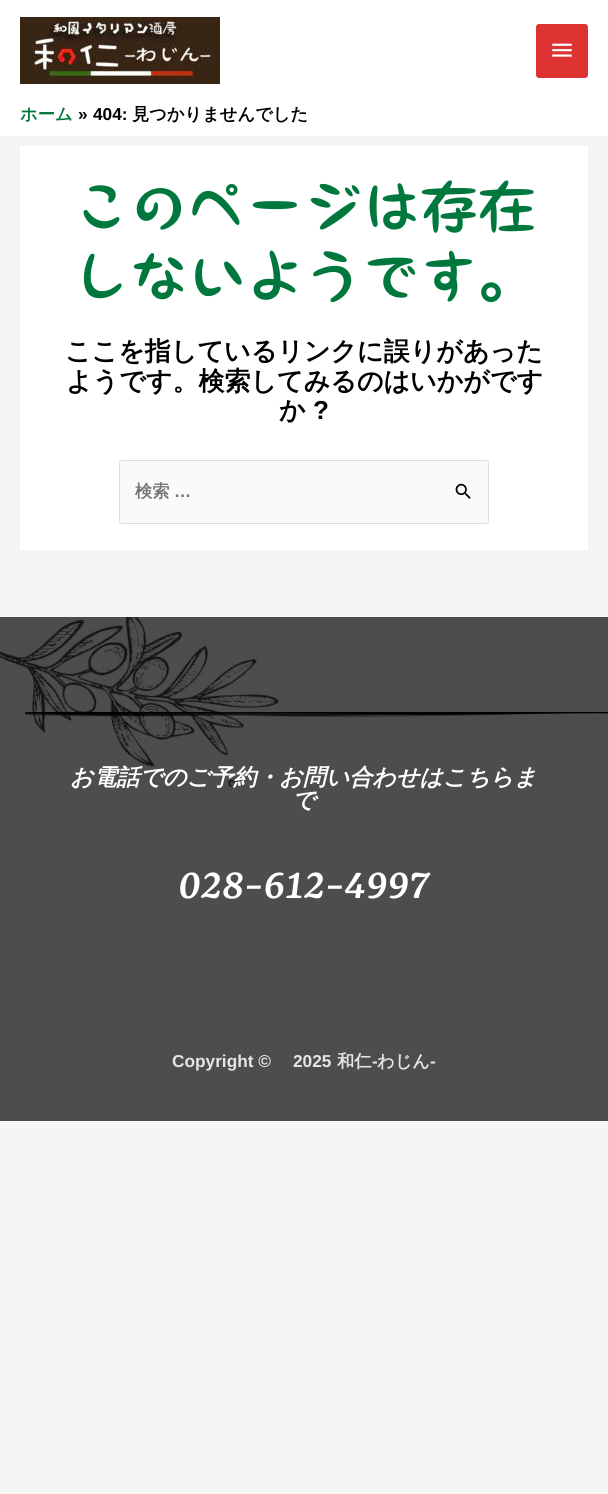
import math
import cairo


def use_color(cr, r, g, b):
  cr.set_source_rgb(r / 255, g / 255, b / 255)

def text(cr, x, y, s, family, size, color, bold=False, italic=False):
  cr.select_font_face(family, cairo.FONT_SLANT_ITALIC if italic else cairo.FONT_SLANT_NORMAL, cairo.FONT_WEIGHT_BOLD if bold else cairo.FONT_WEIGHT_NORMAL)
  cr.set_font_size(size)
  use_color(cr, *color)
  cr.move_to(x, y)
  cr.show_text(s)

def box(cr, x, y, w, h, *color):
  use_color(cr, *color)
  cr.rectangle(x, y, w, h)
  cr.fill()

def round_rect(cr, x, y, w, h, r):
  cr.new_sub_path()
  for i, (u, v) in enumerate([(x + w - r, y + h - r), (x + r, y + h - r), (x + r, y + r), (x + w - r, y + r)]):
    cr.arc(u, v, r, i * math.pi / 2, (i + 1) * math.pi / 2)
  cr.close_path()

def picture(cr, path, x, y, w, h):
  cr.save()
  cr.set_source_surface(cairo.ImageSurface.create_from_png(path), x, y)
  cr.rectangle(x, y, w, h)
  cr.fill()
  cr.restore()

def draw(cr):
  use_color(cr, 245, 245, 245)
  cr.paint()
  box(cr, 0, 0, 608, 136, 255, 255, 255)
  picture(cr, "img_01.png", 20, 17, 200, 67)
  use_color(cr, 221, 51, 51)
  round_rect(cr, 536, 24, 52, 54, 3)
  cr.fill()
  picture(cr, "img_02.png", 552, 43, 20, 14)
  box(cr, 20, 146, 568, 404, 255, 255, 255)
  use_color(cr, 250, 250, 250)
  round_rect(cr, 119.5, 460.5, 369, 63, 1.5)
  cr.fill_preserve()
  use_color(cr, 221, 221, 221)
  cr.set_line_width(1)
  cr.stroke()
  picture(cr, "img_03.png", 455, 483, 16, 16)
  box(cr, 0, 617, 608, 504, 78, 77, 77)
  picture(cr, "img_04.png", 0, 617, 282, 175)
  picture(cr, "img_05.png", 25, 712, 583, 5)
  text(cr, 20, 120, "ホーム", "WenQuanYi Zen Hei", 17.25, (0, 119, 61), bold=True)
  text(cr, 78, 120, "»", "Liberation Sans", 17.25, (0, 0, 0), bold=True)
  text(cr, 93, 120, "404:", "Liberation Sans", 17.25, (0, 0, 0), bold=True)
  text(cr, 132, 120, "見つかりませんでした", "WenQuanYi Zen Hei", 17.25, (0, 0, 0), bold=True)
  text(cr, 72, 228, "このページは存在", "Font", 58, (0, 119, 61))
  text(cr, 72, 298, "しないようです。", "Font", 58, (0, 119, 61))
  text(cr, 65, 360, "ここを指しているリンクに誤りがあった", "WenQuanYi Zen Hei", 26, (0, 0, 0), bold=True)
  text(cr, 66, 390, "ようです。検索してみるのはいかがです", "WenQuanYi Zen Hei", 26, (0, 0, 0), bold=True)
  text(cr, 279, 419, "か", "WenQuanYi Zen Hei", 26, (0, 0, 0), bold=True)
  text(cr, 313, 419, "?", "Liberation Sans", 26, (0, 0, 0), bold=True)
  text(cr, 135, 497, "検索", "WenQuanYi Zen Hei", 17.25, (117, 117, 117), bold=True)
  text(cr, 174, 497, "…", "Liberation Sans", 17.25, (117, 117, 117), bold=True)
  text(cr, 70, 785, "お電話でのご予約・お問い合わせはこちらま", "WenQuanYi Zen Hei", 23, (255, 255, 255), bold=True, italic=True)
  text(cr, 292, 808, "で", "WenQuanYi Zen Hei", 23, (255, 255, 255), bold=True, italic=True)
  text(cr, 178, 898, "028-612-4997", "Yrsa Medium", 50, (255, 255, 255), italic=True)
  text(cr, 172, 1067, "Copyright ©", "Liberation Sans", 17.25, (229, 229, 229), bold=True)
  text(cr, 293, 1067, "2025", "Liberation Sans", 17.25, (229, 229, 229), bold=True)
  text(cr, 337, 1067, "和仁", "WenQuanYi Zen Hei", 17.25, (229, 229, 229), bold=True)
  text(cr, 372, 1067, "-", "Liberation Sans", 17.25, (229, 229, 229), bold=True)
  text(cr, 377, 1067, "わじん", "WenQuanYi Zen Hei", 17.25, (229, 229, 229), bold=True)
  text(cr, 430, 1067, "-", "Liberation Sans", 17.25, (229, 229, 229), bold=True)


surface = cairo.ImageSurface(cairo.FORMAT_RGB24, 608, 1494)
cr = cairo.Context(surface)
options = cairo.FontOptions()
options.set_hint_metrics(cairo.HINT_METRICS_OFF)
options.set_hint_style(cairo.HINT_STYLE_NONE)
cr.set_font_options(options)
cr.set_miter_limit(4)
draw(cr)
surface.write_to_png("out.png")
